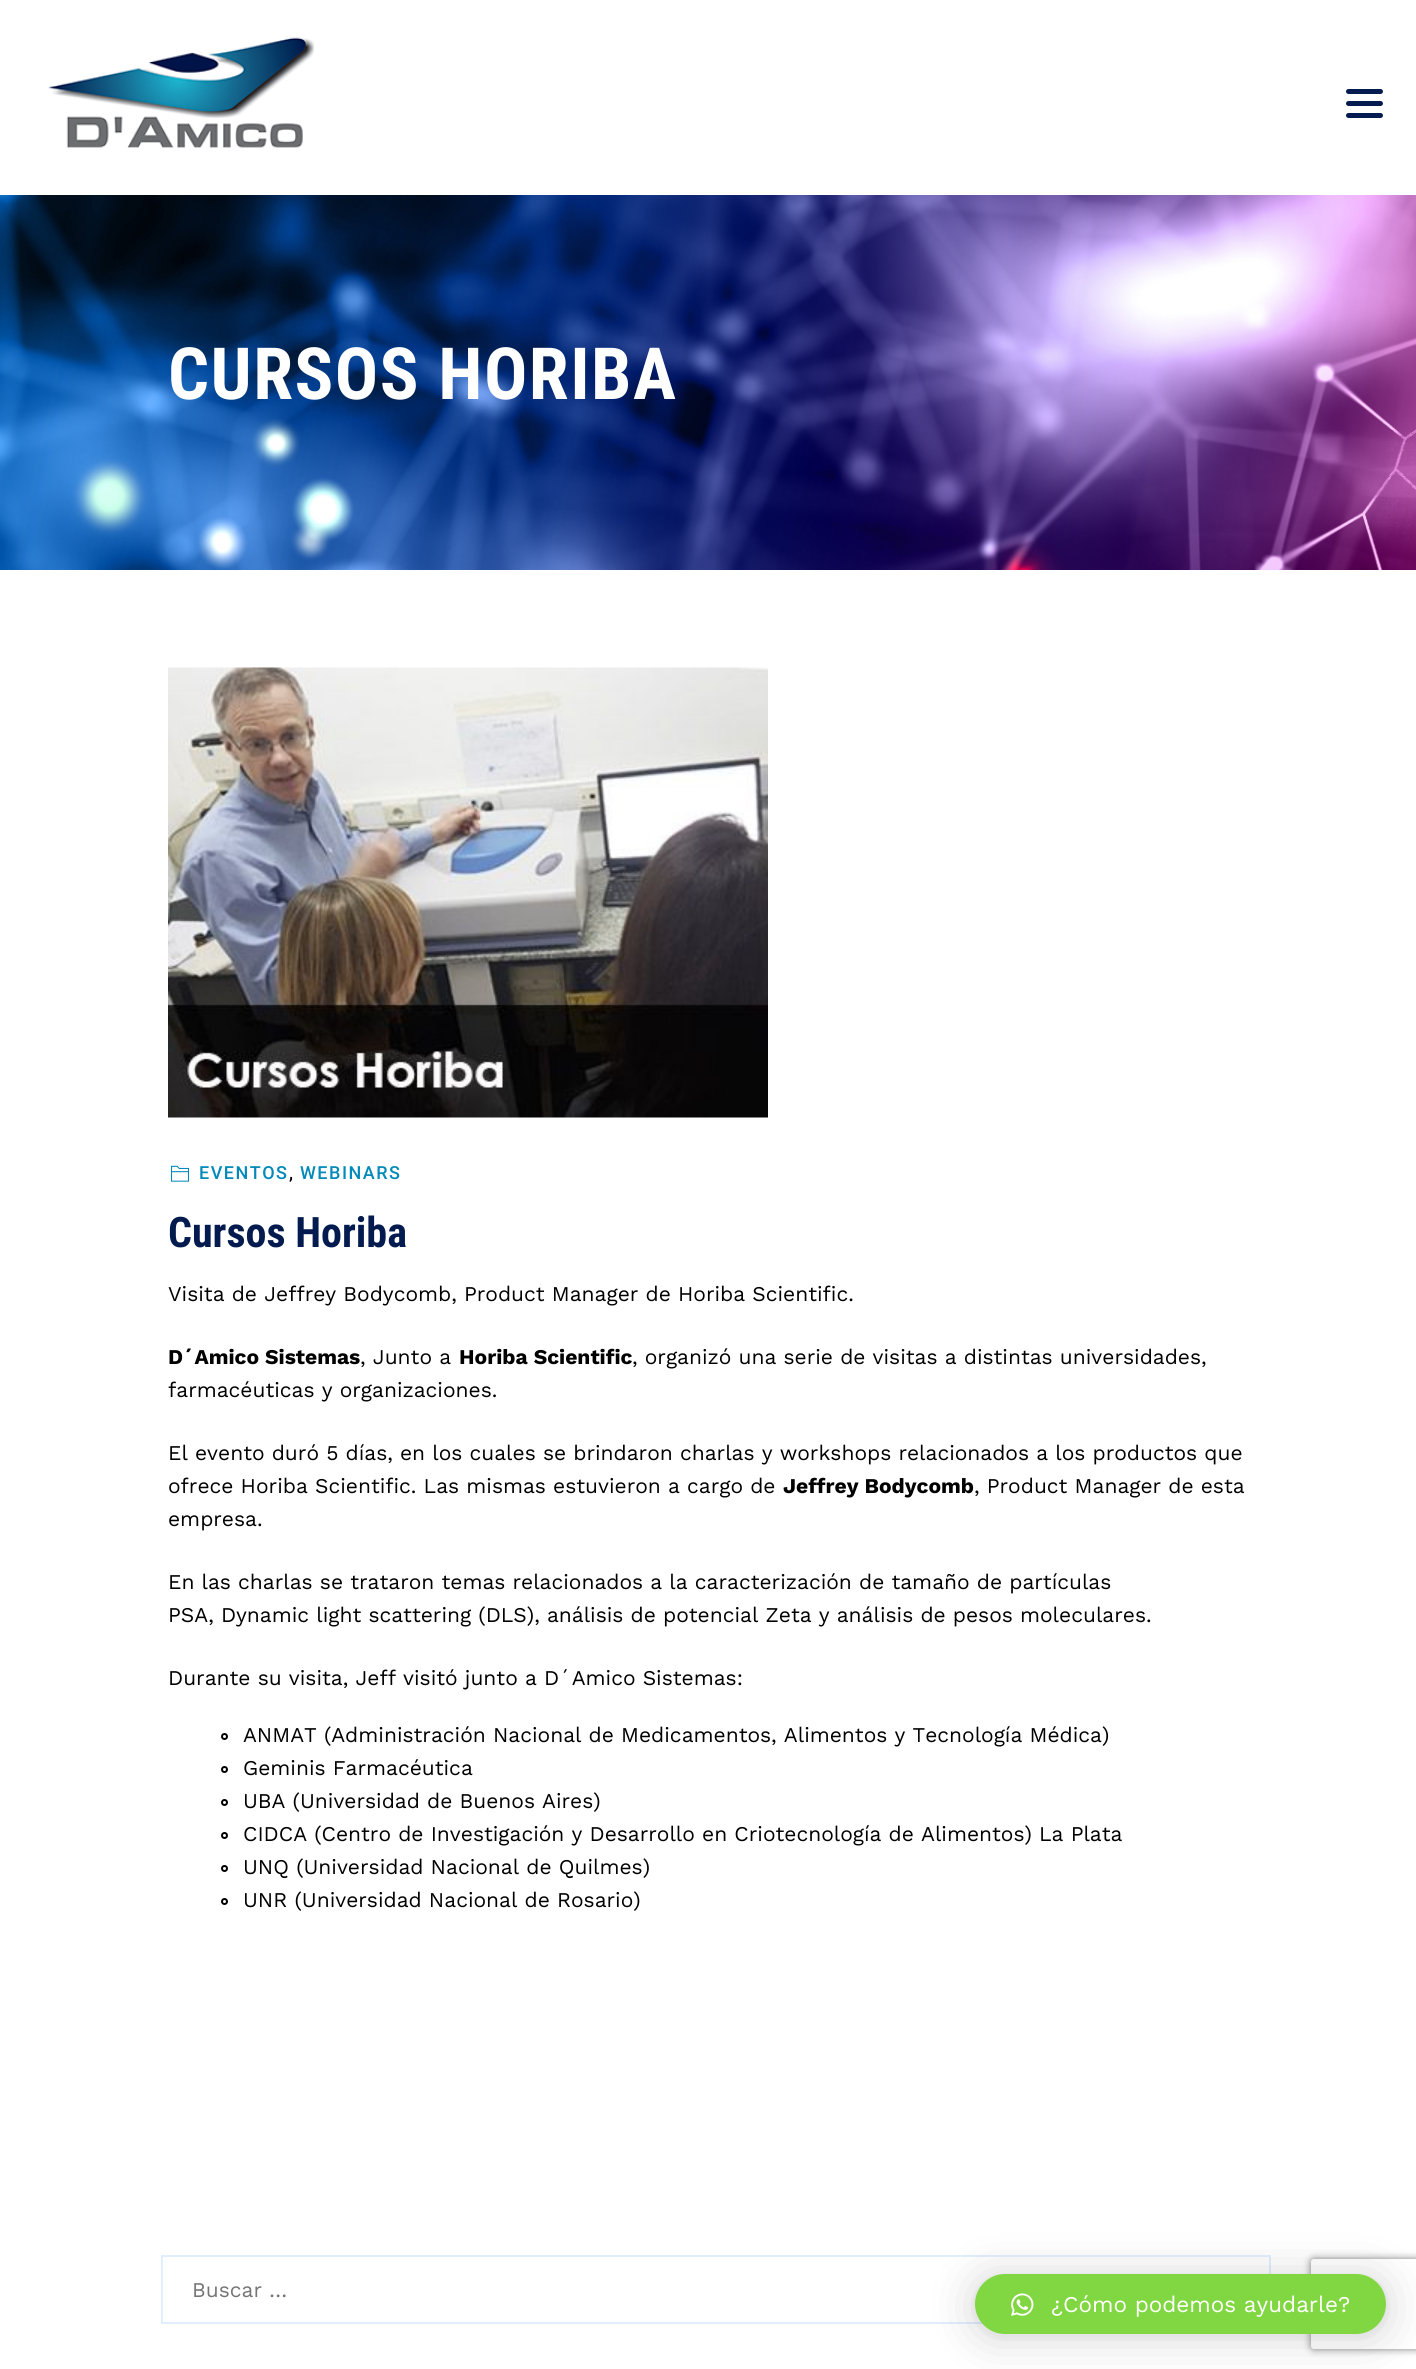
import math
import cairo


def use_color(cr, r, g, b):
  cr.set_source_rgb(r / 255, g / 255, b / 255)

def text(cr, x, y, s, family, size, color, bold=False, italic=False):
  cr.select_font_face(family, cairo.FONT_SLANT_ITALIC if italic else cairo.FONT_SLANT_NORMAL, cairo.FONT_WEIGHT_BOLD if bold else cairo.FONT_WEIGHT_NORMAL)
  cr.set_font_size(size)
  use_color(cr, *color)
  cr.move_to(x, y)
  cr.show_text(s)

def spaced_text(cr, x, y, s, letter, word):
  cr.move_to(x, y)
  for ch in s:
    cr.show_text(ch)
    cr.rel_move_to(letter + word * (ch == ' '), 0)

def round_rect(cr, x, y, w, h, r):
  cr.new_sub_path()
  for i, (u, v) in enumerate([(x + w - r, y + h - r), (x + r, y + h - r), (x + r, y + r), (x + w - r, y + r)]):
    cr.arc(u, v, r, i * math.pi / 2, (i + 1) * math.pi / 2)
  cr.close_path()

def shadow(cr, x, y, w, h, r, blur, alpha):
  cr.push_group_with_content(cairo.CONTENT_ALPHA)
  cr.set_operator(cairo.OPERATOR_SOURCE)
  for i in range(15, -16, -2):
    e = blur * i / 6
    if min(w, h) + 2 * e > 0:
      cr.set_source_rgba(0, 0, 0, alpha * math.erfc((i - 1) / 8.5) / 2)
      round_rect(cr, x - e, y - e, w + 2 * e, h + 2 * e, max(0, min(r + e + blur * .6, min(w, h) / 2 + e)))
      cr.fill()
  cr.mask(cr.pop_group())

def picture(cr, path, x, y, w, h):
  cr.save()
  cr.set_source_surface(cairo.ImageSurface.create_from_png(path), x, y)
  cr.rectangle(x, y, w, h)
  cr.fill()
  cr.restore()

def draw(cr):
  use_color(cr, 255, 255, 255)
  cr.paint()
  picture(cr, "img_01.png", 48, 37, 267, 111)
  use_color(cr, 3, 27, 78)
  round_rect(cr, 1346, 101, 37, 5, 2.5)
  cr.fill()
  round_rect(cr, 1346, 89, 37, 5, 2.5)
  cr.fill()
  round_rect(cr, 1346, 113, 37, 5, 2.5)
  cr.fill()
  picture(cr, "img_02.png", 0, 195, 1416, 375)
  picture(cr, "img_03.png", 168, 667, 600, 451)
  picture(cr, "img_04.png", 171, 1165, 18, 17)
  cr.arc(224.5, 1736.5, 2.5, 0, 2 * math.pi)
  use_color(cr, 0, 0, 0)
  cr.stroke()
  cr.arc(224.5, 1769.5, 2.5, 0, 2 * math.pi)
  cr.stroke()
  cr.arc(224.5, 1802.5, 2.5, 0, 2 * math.pi)
  cr.stroke()
  cr.arc(224.5, 1835.5, 2.5, 0, 2 * math.pi)
  cr.stroke()
  cr.arc(224.5, 1868.5, 2.5, 0, 2 * math.pi)
  cr.stroke()
  cr.arc(224.5, 1901.5, 2.5, 0, 2 * math.pi)
  cr.stroke()
  cr.rectangle(162, 2256, 1108, 67)
  use_color(cr, 225, 238, 255)
  cr.stroke()
  cr.save()
  cr.set_fill_rule(cairo.FILL_RULE_EVEN_ODD)
  cr.new_path()
  cr.move_to(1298, 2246)
  cr.line_to(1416, 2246)
  cr.line_to(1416, 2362)
  cr.line_to(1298, 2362)
  cr.close_path()
  cr.move_to(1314, 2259)
  cr.line_to(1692, 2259)
  cr.curve_to(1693.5, 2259, 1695, 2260.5, 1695, 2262)
  cr.line_to(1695, 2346)
  cr.curve_to(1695, 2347.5, 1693.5, 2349, 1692, 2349)
  cr.line_to(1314, 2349)
  cr.curve_to(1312.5, 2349, 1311, 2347.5, 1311, 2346)
  cr.line_to(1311, 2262)
  cr.curve_to(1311, 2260.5, 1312.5, 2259, 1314, 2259)
  cr.close_path()
  cr.clip()
  use_color(cr, 128, 128, 128)
  shadow(cr, 1311, 2259, 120, 90, 3, 4, 1)
  cr.restore()
  use_color(cr, 0, 0, 0)
  shadow(cr, 975, 2277, 411, 60, 30, 24, 0.16)
  shadow(cr, 975, 2276, 411, 60, 30, 4.5, 0.06)
  use_color(cr, 129, 215, 66)
  round_rect(cr, 975, 2274, 411, 60, 30)
  cr.fill()
  picture(cr, "img_05.png", 1011, 2293, 23, 23)
  cr.select_font_face("Roboto Condensed", cairo.FONT_SLANT_NORMAL, cairo.FONT_WEIGHT_BOLD)
  cr.set_font_size(72)
  use_color(cr, 255, 255, 255)
  spaced_text(cr, 168, 399, "CURSOS HORIBA", 1.5, 0)
  cr.select_font_face("Roboto Medium")
  cr.set_font_size(18)
  use_color(cr, 1, 137, 185)
  spaced_text(cr, 199, 1179, "EVENTOS", 1.5, 0)
  use_color(cr, 0, 0, 0)
  spaced_text(cr, 289, 1179, ",", 1.5, 0)
  use_color(cr, 1, 137, 185)
  spaced_text(cr, 300, 1179, "WEBINARS", 1.5, 0)
  text(cr, 168, 1247, "Cursos Horiba", "Roboto Condensed", 42, (3, 27, 78), bold=True)
  text(cr, 168, 1301, "Visita de Jeffrey Bodycomb, Product Manager de Horiba Scientific.", "Work Sans", 21, (0, 0, 0))
  text(cr, 168, 1364, "D´Amico Sistemas", "Work Sans", 21, (0, 0, 0), bold=True)
  text(cr, 360, 1364, ", Junto a", "Work Sans", 21, (0, 0, 0))
  text(cr, 459, 1364, "Horiba Scientific", "Work Sans", 21, (0, 0, 0), bold=True)
  text(cr, 632, 1364, ", organizó una serie de visitas a distintas universidades,", "Work Sans", 21, (0, 0, 0))
  text(cr, 168, 1397, "farmacéuticas y organizaciones.", "Work Sans", 21, (0, 0, 0))
  text(cr, 168, 1460, "El evento duró 5 días, en los cuales se brindaron charlas y workshops relacionados a los productos que", "Work Sans", 21, (0, 0, 0))
  text(cr, 168, 1493, "ofrece Horiba Scientific. Las mismas estuvieron a cargo de", "Work Sans", 21, (0, 0, 0))
  text(cr, 783, 1493, "Jeffrey Bodycomb", "Work Sans", 21, (0, 0, 0), bold=True)
  text(cr, 974, 1493, ", Product Manager de esta", "Work Sans", 21, (0, 0, 0))
  text(cr, 168, 1526, "empresa.", "Work Sans", 21, (0, 0, 0))
  text(cr, 168, 1589, "En las charlas se trataron temas relacionados a la caracterización de tamaño de partículas", "Work Sans", 21, (0, 0, 0))
  text(cr, 168, 1622, "PSA, Dynamic light scattering (DLS), análisis de potencial Zeta y análisis de pesos moleculares.", "Work Sans", 21, (0, 0, 0))
  text(cr, 168, 1685, "Durante su visita, Jeff visitó junto a D´Amico Sistemas:", "Work Sans", 21, (0, 0, 0))
  text(cr, 243, 1742, "ANMAT (Administración Nacional de Medicamentos, Alimentos y Tecnología Médica)", "Work Sans", 21, (0, 0, 0))
  text(cr, 243, 1775, "Geminis Farmacéutica", "Work Sans", 21, (0, 0, 0))
  text(cr, 243, 1808, "UBA (Universidad de Buenos Aires)", "Work Sans", 21, (0, 0, 0))
  text(cr, 243, 1841, "CIDCA (Centro de Investigación y Desarrollo en Criotecnología de Alimentos) La Plata", "Work Sans", 21, (0, 0, 0))
  text(cr, 243, 1874, "UNQ (Universidad Nacional de Quilmes)", "Work Sans", 21, (0, 0, 0))
  text(cr, 243, 1907, "UNR (Universidad Nacional de Rosario)", "Work Sans", 21, (0, 0, 0))
  text(cr, 192, 2297, "Buscar …", "Work Sans", 21, (117, 117, 117))
  text(cr, 1051, 2312, "¿Cómo podemos ayudarle?", "Work Sans", 22.5, (255, 255, 255))


surface = cairo.ImageSurface(cairo.FORMAT_RGB24, 1416, 2369)
cr = cairo.Context(surface)
options = cairo.FontOptions()
options.set_hint_metrics(cairo.HINT_METRICS_OFF)
options.set_hint_style(cairo.HINT_STYLE_NONE)
cr.set_font_options(options)
cr.set_miter_limit(4)
draw(cr)
surface.write_to_png("out.png")
